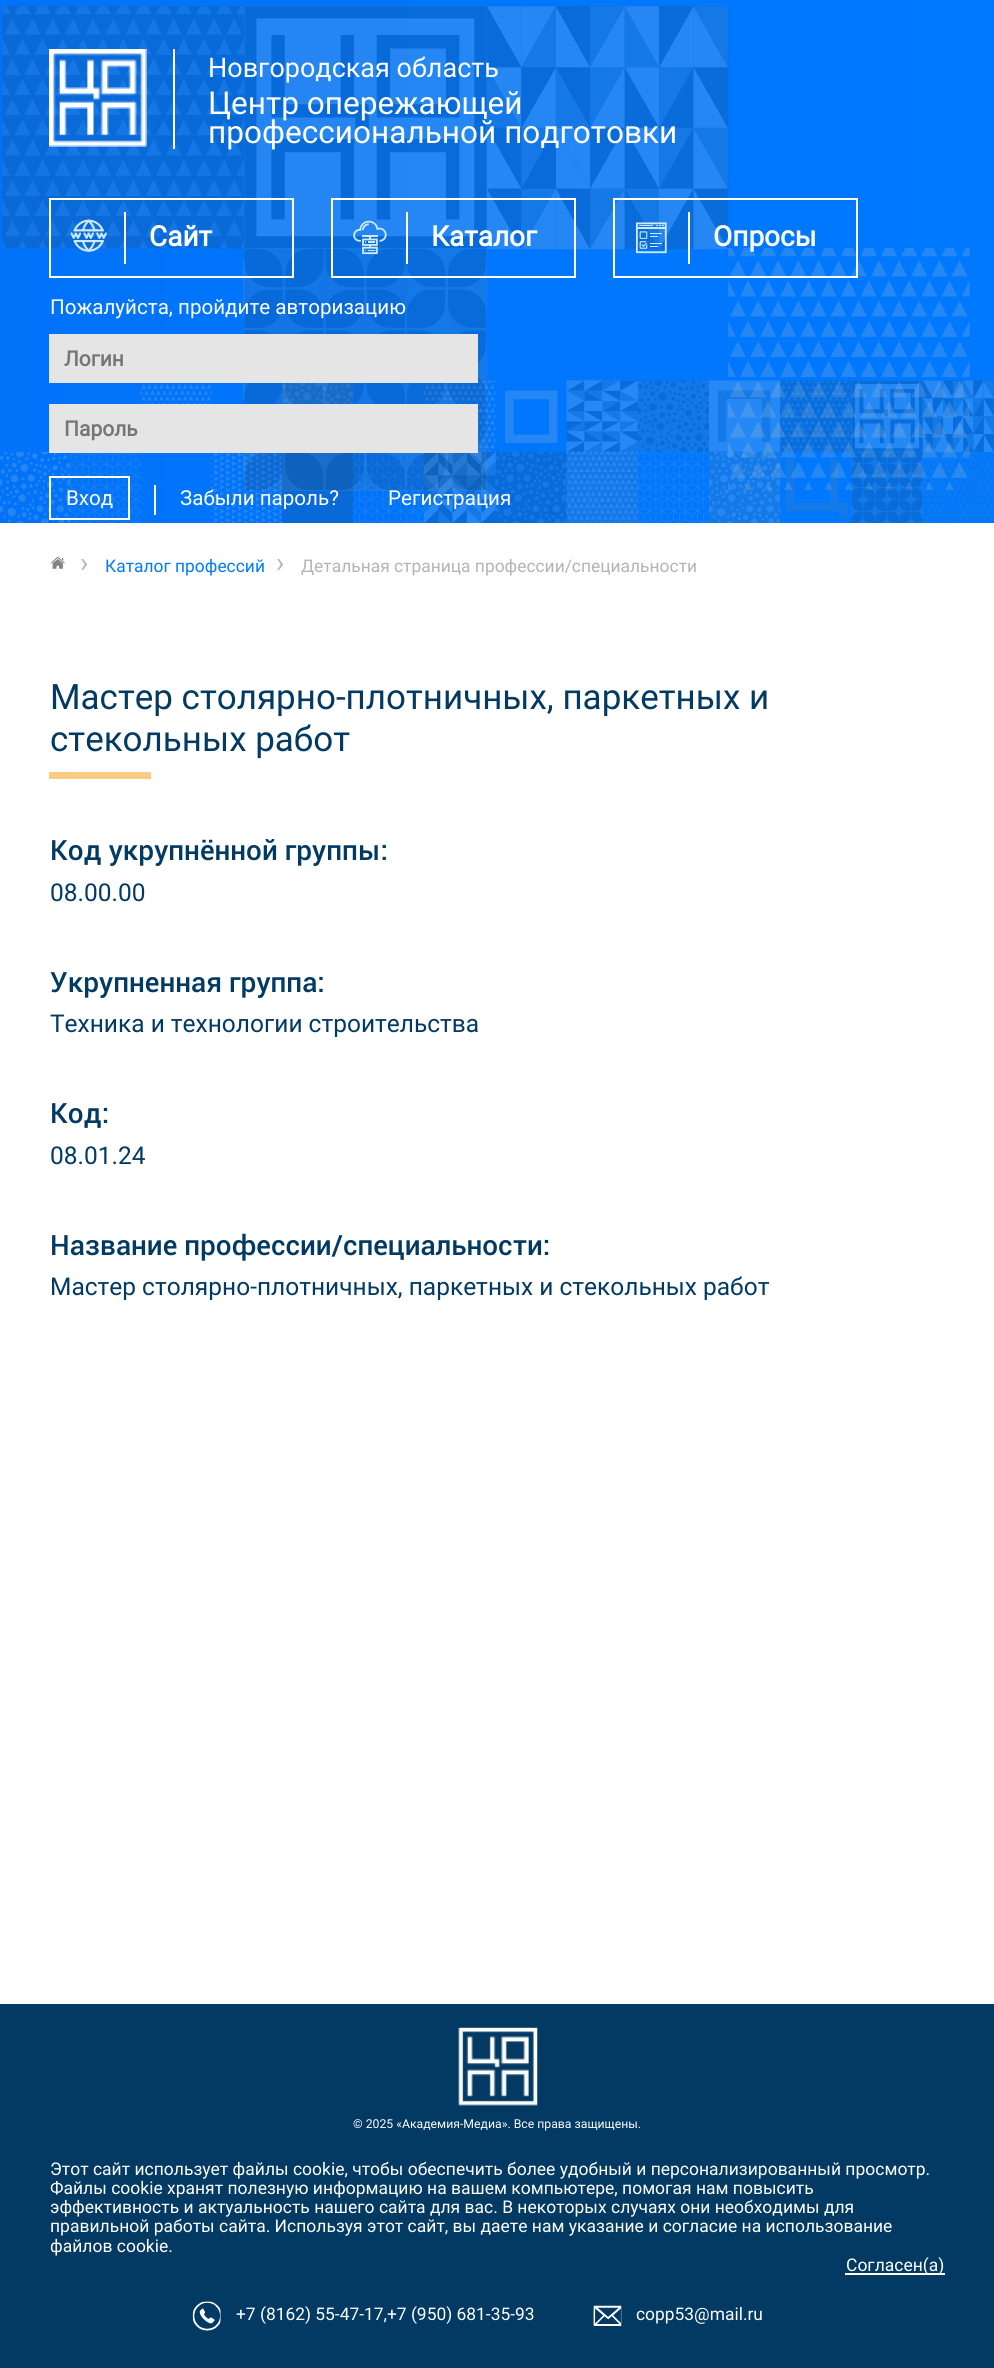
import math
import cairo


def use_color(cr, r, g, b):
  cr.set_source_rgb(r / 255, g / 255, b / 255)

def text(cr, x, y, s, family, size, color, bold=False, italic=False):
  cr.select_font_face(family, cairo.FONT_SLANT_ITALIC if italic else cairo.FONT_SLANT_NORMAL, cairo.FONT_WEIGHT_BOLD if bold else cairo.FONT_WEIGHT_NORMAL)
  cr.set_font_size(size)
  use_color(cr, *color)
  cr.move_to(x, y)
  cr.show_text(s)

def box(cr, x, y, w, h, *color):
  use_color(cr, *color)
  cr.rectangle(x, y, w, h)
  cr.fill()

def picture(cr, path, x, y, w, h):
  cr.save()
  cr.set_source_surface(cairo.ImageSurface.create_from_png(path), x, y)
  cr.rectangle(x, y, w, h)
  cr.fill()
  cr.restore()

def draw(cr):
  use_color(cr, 255, 255, 255)
  cr.paint()
  picture(cr, "img_01.png", 0, 0, 994, 523)
  picture(cr, "img_02.png", 49, 49, 98, 98)
  box(cr, 173, 49, 2, 100, 255, 255, 255)
  cr.rectangle(50, 199, 243, 78)
  cr.stroke()
  picture(cr, "img_03.png", 70, 219, 37, 33)
  box(cr, 124, 212, 2, 52, 255, 255, 255)
  cr.rectangle(332, 199, 243, 78)
  cr.stroke()
  picture(cr, "img_04.png", 353, 220, 34, 35)
  box(cr, 406, 212, 2, 52, 255, 255, 255)
  cr.rectangle(614, 199, 243, 78)
  cr.stroke()
  picture(cr, "img_05.png", 635, 222, 32, 32)
  box(cr, 688, 212, 2, 52, 255, 255, 255)
  box(cr, 49, 334, 429, 49, 229, 229, 229)
  box(cr, 49, 404, 429, 49, 229, 229, 229)
  box(cr, 154, 485, 2, 30, 255, 255, 255)
  cr.rectangle(50, 477, 79, 42)
  cr.stroke()
  picture(cr, "img_06.png", 50, 556, 15, 13)
  box(cr, 49, 772, 102, 7, 251, 202, 131)
  box(cr, 0, 2004, 994, 364, 2, 58, 99)
  picture(cr, "img_07.png", 458, 2027, 80, 79)
  box(cr, 845, 2273, 100, 2, 255, 255, 255)
  picture(cr, "img_08.png", 192, 2301, 29, 30)
  picture(cr, "img_09.png", 593, 2305, 29, 21)
  text(cr, 208, 77, "Новгородская область", "Roboto", 27, (255, 255, 255))
  text(cr, 208, 114, "Центр опережающей", "Roboto", 31.6, (255, 255, 255))
  text(cr, 208, 143, "профессиональной подготовки", "Roboto", 31.6, (255, 255, 255))
  text(cr, 149, 246, "Сайт", "Roboto", 28, (255, 255, 255), bold=True)
  text(cr, 431, 246, "Каталог", "Roboto", 28, (255, 255, 255), bold=True)
  text(cr, 713, 246, "Опросы", "Roboto", 28, (255, 255, 255), bold=True)
  text(cr, 50, 314, "Пожалуйста, пройдите авторизацию", "Roboto", 20.6, (255, 255, 255))
  text(cr, 64, 366, "Логин", "Roboto", 21, (117, 117, 117), bold=True)
  text(cr, 64, 436, "Пароль", "Roboto", 21, (117, 117, 117), bold=True)
  text(cr, 66, 505, "Вход", "Roboto", 20.6, (255, 255, 255))
  text(cr, 180, 505, "Забыли пароль?", "Roboto", 20.6, (255, 255, 255))
  text(cr, 388, 505, "Регистрация", "Roboto", 20.6, (255, 255, 255))
  text(cr, 80, 572, "›", "Roboto", 27.9, (180, 180, 180))
  text(cr, 105, 572, "Каталог профессий", "Roboto", 17.4, (0, 123, 255))
  text(cr, 276, 572, "›", "Roboto", 27.9, (180, 180, 180))
  text(cr, 301, 572, "Детальная страница профессии/специальности", "Roboto", 17.4, (180, 180, 180))
  text(cr, 50, 709, "Мастер столярно-плотничных, паркетных и", "Roboto", 35, (2, 58, 99))
  text(cr, 50, 751, "стекольных работ", "Roboto", 35, (2, 58, 99))
  text(cr, 50, 860, "Код укрупнённой группы:", "Roboto Medium", 27.9, (2, 58, 99))
  text(cr, 50, 901, "08.00.00", "Roboto", 24.5, (2, 58, 99))
  text(cr, 50, 992, "Укрупненная группа:", "Roboto Medium", 27.9, (2, 58, 99))
  text(cr, 50, 1032, "Техника и технологии строительства", "Roboto", 24.5, (2, 58, 99))
  text(cr, 50, 1123, "Код:", "Roboto Medium", 27.9, (2, 58, 99))
  text(cr, 50, 1164, "08.01.24", "Roboto", 24.5, (2, 58, 99))
  text(cr, 50, 1255, "Название профессии/специальности:", "Roboto Medium", 27.9, (2, 58, 99))
  text(cr, 50, 1295, "Мастер столярно-плотничных, паркетных и стекольных работ", "Roboto", 24.5, (2, 58, 99))
  text(cr, 353, 2128, "© 2025 «Академия-Медиа». Все права защищены.", "Roboto", 12.25, (255, 255, 255))
  text(cr, 50, 2175, "Этот сайт использует файлы cookie, чтобы обеспечить более удобный и персонализированный просмотр.", "Roboto", 17.5, (255, 255, 255))
  text(cr, 50, 2194, "Файлы cookie хранят полезную информацию на вашем компьютере, помогая нам повысить", "Roboto", 17.5, (255, 255, 255))
  text(cr, 50, 2213, "эффективность и актуальность нашего сайта для вас. В некоторых случаях они необходимы для", "Roboto", 17.5, (255, 255, 255))
  text(cr, 50, 2232, "правильной работы сайта. Используя этот сайт, вы даете нам указание и согласие на использование", "Roboto", 17.5, (255, 255, 255))
  text(cr, 50, 2252, "файлов cookie.", "Roboto", 17.5, (255, 255, 255))
  text(cr, 846, 2271, "Согласен(а)", "Roboto", 17.5, (255, 255, 255))
  text(cr, 236, 2320, "+7 (8162) 55-47-17,+7 (950) 681-35-93", "Roboto", 17.4, (255, 255, 255))
  text(cr, 636, 2320, "copp53@mail.ru", "Roboto", 17.4, (255, 255, 255))


surface = cairo.ImageSurface(cairo.FORMAT_RGB24, 994, 2368)
cr = cairo.Context(surface)
options = cairo.FontOptions()
options.set_hint_metrics(cairo.HINT_METRICS_OFF)
options.set_hint_style(cairo.HINT_STYLE_NONE)
cr.set_font_options(options)
cr.set_miter_limit(4)
draw(cr)
surface.write_to_png("out.png")
